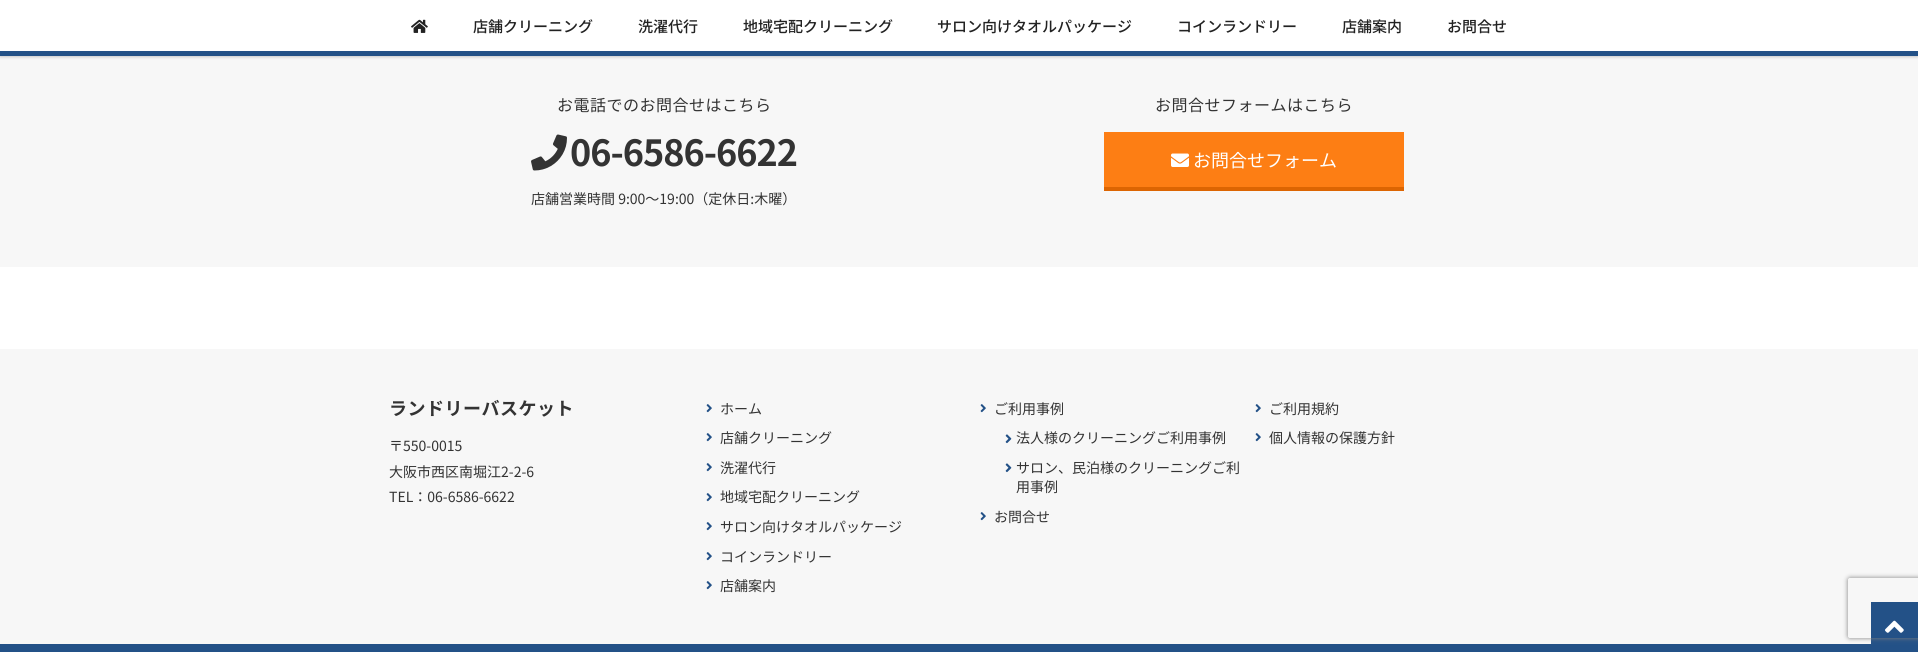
import math
import cairo


def use_color(cr, r, g, b):
  cr.set_source_rgb(r / 255, g / 255, b / 255)

def text(cr, x, y, s, family, size, color, bold=False, italic=False):
  cr.select_font_face(family, cairo.FONT_SLANT_ITALIC if italic else cairo.FONT_SLANT_NORMAL, cairo.FONT_WEIGHT_BOLD if bold else cairo.FONT_WEIGHT_NORMAL)
  cr.set_font_size(size)
  use_color(cr, *color)
  cr.move_to(x, y)
  cr.show_text(s)

def spaced_text(cr, x, y, s, letter, word):
  cr.move_to(x, y)
  for ch in s:
    cr.show_text(ch)
    cr.rel_move_to(letter + word * (ch == ' '), 0)

def box(cr, x, y, w, h, *color):
  use_color(cr, *color)
  cr.rectangle(x, y, w, h)
  cr.fill()

def round_rect(cr, x, y, w, h, r):
  cr.new_sub_path()
  for i, (u, v) in enumerate([(x + w - r, y + h - r), (x + r, y + h - r), (x + r, y + r), (x + w - r, y + r)]):
    cr.arc(u, v, r, i * math.pi / 2, (i + 1) * math.pi / 2)
  cr.close_path()

def shadow(cr, x, y, w, h, r, blur, alpha):
  cr.push_group_with_content(cairo.CONTENT_ALPHA)
  cr.set_operator(cairo.OPERATOR_SOURCE)
  for i in range(15, -16, -2):
    e = blur * i / 6
    if min(w, h) + 2 * e > 0:
      cr.set_source_rgba(0, 0, 0, alpha * math.erfc((i - 1) / 8.5) / 2)
      round_rect(cr, x - e, y - e, w + 2 * e, h + 2 * e, max(0, min(r + e + blur * .6, min(w, h) / 2 + e)))
      cr.fill()
  cr.mask(cr.pop_group())

def picture(cr, path, x, y, w, h):
  cr.save()
  cr.set_source_surface(cairo.ImageSurface.create_from_png(path), x, y)
  cr.rectangle(x, y, w, h)
  cr.fill()
  cr.restore()

def draw(cr):
  use_color(cr, 255, 255, 255)
  cr.paint()
  box(cr, 0, 56, 1918, 211, 247, 247, 247)
  use_color(cr, 0, 0, 0)
  shadow(cr, 0, 1, 1918, 56, 0, 1.5, 0.2)
  box(cr, 0, 0, 1918, 51, 255, 255, 255)
  box(cr, 0, 51, 1918, 5, 35, 81, 135)
  picture(cr, "img_01.png", 411, 19, 17, 14)
  picture(cr, "img_02.png", 531, 134, 36, 37)
  box(cr, 1104, 132, 300, 55, 253, 126, 20)
  box(cr, 1104, 187, 300, 4, 220, 101, 2)
  picture(cr, "img_03.png", 1171, 153, 18, 14)
  box(cr, 0, 349, 1918, 295, 247, 247, 247)
  picture(cr, "img_04.png", 706, 404, 6, 9)
  picture(cr, "img_04.png", 706, 433, 6, 9)
  picture(cr, "img_04.png", 706, 463, 6, 9)
  picture(cr, "img_04.png", 706, 493, 6, 9)
  picture(cr, "img_04.png", 706, 522, 6, 9)
  picture(cr, "img_04.png", 706, 552, 6, 9)
  picture(cr, "img_04.png", 706, 581, 6, 9)
  picture(cr, "img_04.png", 980, 404, 6, 9)
  picture(cr, "img_05.png", 1005, 434, 7, 10)
  picture(cr, "img_05.png", 1005, 463, 7, 10)
  picture(cr, "img_04.png", 980, 512, 6, 9)
  picture(cr, "img_04.png", 1255, 404, 6, 9)
  picture(cr, "img_04.png", 1255, 433, 6, 9)
  box(cr, 0, 644, 1871, 8, 35, 81, 135)
  box(cr, 1871, 602, 47, 50, 35, 81, 135)
  picture(cr, "img_06.png", 1885, 620, 19, 13)
  cr.save()
  cr.set_fill_rule(cairo.FILL_RULE_EVEN_ODD)
  cr.new_path()
  cr.move_to(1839, 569)
  cr.line_to(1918, 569)
  cr.line_to(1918, 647)
  cr.line_to(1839, 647)
  cr.close_path()
  cr.move_to(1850, 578)
  cr.line_to(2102, 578)
  cr.curve_to(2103, 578, 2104, 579, 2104, 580)
  cr.line_to(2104, 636)
  cr.curve_to(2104, 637, 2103, 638, 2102, 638)
  cr.line_to(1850, 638)
  cr.curve_to(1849, 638, 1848, 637, 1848, 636)
  cr.line_to(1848, 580)
  cr.curve_to(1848, 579, 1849, 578, 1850, 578)
  cr.close_path()
  cr.clip()
  use_color(cr, 128, 128, 128)
  shadow(cr, 1848, 578, 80, 60, 2, 2.5, 1)
  cr.restore()
  text(cr, 473, 32, "店舗クリーニング", "Noto Sans JP Medium", 15, (34, 34, 34))
  text(cr, 638, 32, "洗濯代行", "Noto Sans JP Medium", 15, (34, 34, 34))
  text(cr, 743, 32, "地域宅配クリーニング", "Noto Sans JP Medium", 15, (34, 34, 34))
  text(cr, 937, 32, "サロン向けタオルパッケージ", "Noto Sans JP Medium", 15, (34, 34, 34))
  text(cr, 1177, 32, "コインランドリー", "Noto Sans JP Medium", 15, (34, 34, 34))
  text(cr, 1342, 32, "店舗案内", "Noto Sans JP Medium", 15, (34, 34, 34))
  text(cr, 1447, 32, "お問合せ", "Noto Sans JP Medium", 15, (34, 34, 34))
  cr.select_font_face("Noto Sans JP")
  cr.set_font_size(16)
  use_color(cr, 51, 51, 51)
  spaced_text(cr, 557, 111, "お電話でのお問合せはこちら", 0.5, 0)
  cr.select_font_face("Noto Sans JP", cairo.FONT_SLANT_NORMAL, cairo.FONT_WEIGHT_BOLD)
  cr.set_font_size(36)
  spaced_text(cr, 570, 166, "06-6586-6622", -1, 0)
  text(cr, 531, 204, "店舗営業時間 9:00～19:00（定休日:木曜）", "Noto Sans JP", 14, (51, 51, 51))
  cr.set_font_size(16)
  spaced_text(cr, 1155, 111, "お問合せフォームはこちら", 0.5, 0)
  text(cr, 1193, 167, "お問合せフォーム", "Noto Sans JP", 18, (255, 255, 255))
  cr.select_font_face("Noto Sans JP", cairo.FONT_SLANT_NORMAL, cairo.FONT_WEIGHT_BOLD)
  use_color(cr, 51, 51, 51)
  spaced_text(cr, 389, 415, "ランドリーバスケット", 0.5, 0)
  text(cr, 389, 451, "〒550-0015", "Noto Sans JP", 14, (51, 51, 51))
  text(cr, 389, 477, "大阪市西区南堀江2-2-6", "Noto Sans JP", 14, (51, 51, 51))
  text(cr, 389, 502, "TEL：06-6586-6622", "Noto Sans JP", 14, (51, 51, 51))
  text(cr, 720, 414, "ホーム", "Noto Sans JP", 14, (51, 51, 51))
  text(cr, 720, 443, "店舗クリーニング", "Noto Sans JP", 14, (51, 51, 51))
  text(cr, 720, 473, "洗濯代行", "Noto Sans JP", 14, (51, 51, 51))
  text(cr, 720, 502, "地域宅配クリーニング", "Noto Sans JP", 14, (51, 51, 51))
  text(cr, 720, 532, "サロン向けタオルパッケージ", "Noto Sans JP", 14, (51, 51, 51))
  text(cr, 720, 562, "コインランドリー", "Noto Sans JP", 14, (51, 51, 51))
  text(cr, 720, 591, "店舗案内", "Noto Sans JP", 14, (51, 51, 51))
  text(cr, 994, 414, "ご利用事例", "Noto Sans JP", 14, (51, 51, 51))
  text(cr, 1016, 443, "法人様のクリーニングご利用事例", "Noto Sans JP", 14, (51, 51, 51))
  text(cr, 1016, 473, "サロン、民泊様のクリーニングご利", "Noto Sans JP", 14, (51, 51, 51))
  text(cr, 1016, 492, "用事例", "Noto Sans JP", 14, (51, 51, 51))
  text(cr, 994, 522, "お問合せ", "Noto Sans JP", 14, (51, 51, 51))
  text(cr, 1269, 414, "ご利用規約", "Noto Sans JP", 14, (51, 51, 51))
  text(cr, 1269, 443, "個人情報の保護方針", "Noto Sans JP", 14, (51, 51, 51))


surface = cairo.ImageSurface(cairo.FORMAT_RGB24, 1918, 652)
cr = cairo.Context(surface)
options = cairo.FontOptions()
options.set_hint_metrics(cairo.HINT_METRICS_OFF)
options.set_hint_style(cairo.HINT_STYLE_NONE)
cr.set_font_options(options)
cr.set_miter_limit(4)
draw(cr)
surface.write_to_png("out.png")
